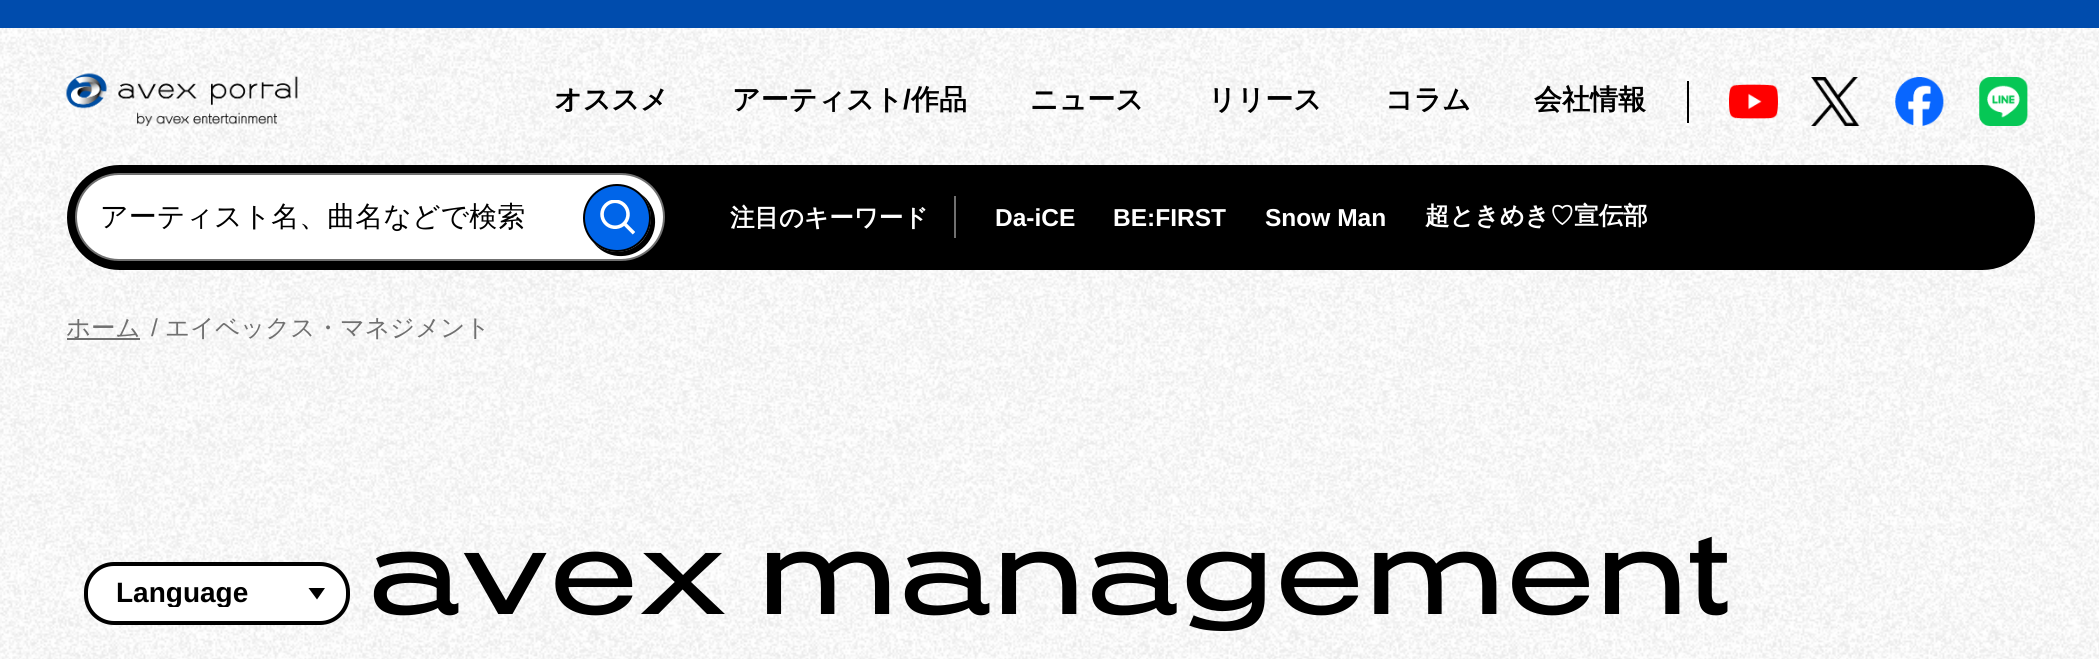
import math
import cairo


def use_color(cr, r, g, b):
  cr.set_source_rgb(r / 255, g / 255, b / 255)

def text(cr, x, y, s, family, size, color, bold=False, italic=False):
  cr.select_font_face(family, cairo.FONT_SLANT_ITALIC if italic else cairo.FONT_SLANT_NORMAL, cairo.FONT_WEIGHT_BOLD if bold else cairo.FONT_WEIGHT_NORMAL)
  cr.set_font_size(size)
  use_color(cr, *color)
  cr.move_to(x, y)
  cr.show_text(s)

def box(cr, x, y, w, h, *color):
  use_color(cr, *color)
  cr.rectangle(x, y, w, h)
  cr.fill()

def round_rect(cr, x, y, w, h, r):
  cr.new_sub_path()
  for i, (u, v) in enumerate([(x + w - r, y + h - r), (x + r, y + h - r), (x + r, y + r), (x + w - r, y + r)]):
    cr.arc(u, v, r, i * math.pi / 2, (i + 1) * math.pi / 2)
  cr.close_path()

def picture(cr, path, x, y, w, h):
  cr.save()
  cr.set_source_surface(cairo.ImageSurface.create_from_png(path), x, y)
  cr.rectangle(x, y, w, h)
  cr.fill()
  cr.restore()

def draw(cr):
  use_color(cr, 255, 255, 255)
  cr.paint()
  picture(cr, "img_01.png", 0, 28, 2099, 631)
  box(cr, 0, 0, 2099, 28, 0, 76, 173)
  picture(cr, "img_02.png", 66, 73, 232, 53)
  box(cr, 1687, 81, 2, 42, 0, 0, 0)
  picture(cr, "img_03.png", 1729, 84, 49, 35)
  picture(cr, "img_04.png", 1811, 77, 49, 49)
  picture(cr, "img_05.png", 1895, 77, 49, 49)
  picture(cr, "img_06.png", 1979, 77, 49, 49)
  round_rect(cr, 67, 165, 1968, 105, 52.5)
  cr.fill()
  use_color(cr, 255, 255, 255)
  round_rect(cr, 76, 174, 588, 86, 43)
  cr.fill_preserve()
  use_color(cr, 112, 112, 112)
  cr.stroke()
  use_color(cr, 0, 0, 0)
  cr.new_path()
  cr.move_to(593, 242)
  cr.curve_to(605, 259, 630, 261, 645, 246)
  cr.curve_to(660, 231, 658, 206, 641, 194)
  cr.curve_to(654, 207, 654, 229, 641, 242)
  cr.curve_to(628, 255, 606, 255, 593, 242)
  cr.close_path()
  cr.fill()
  use_color(cr, 0, 101, 233)
  cr.arc(617, 218, 33, 0, 2 * math.pi)
  cr.fill_preserve()
  use_color(cr, 0, 0, 0)
  cr.stroke()
  picture(cr, "img_07.png", 600, 200, 35, 35)
  box(cr, 954, 196, 2, 42, 112, 112, 112)
  box(cr, 67, 338, 73, 2, 112, 112, 112)
  use_color(cr, 255, 255, 255)
  round_rect(cr, 86, 564, 262, 59, 28)
  cr.fill_preserve()
  use_color(cr, 0, 0, 0)
  cr.set_line_width(4)
  cr.stroke()
  cr.new_path()
  cr.move_to(325, 588)
  cr.line_to(317, 599.5)
  cr.line_to(308.5, 588)
  cr.close_path()
  cr.fill()
  text(cr, 554, 109, "オススメ", "WenQuanYi Zen Hei", 28, (0, 0, 0), bold=True)
  text(cr, 732, 109, "アーティスト", "WenQuanYi Zen Hei", 28, (0, 0, 0), bold=True)
  text(cr, 903, 109, "/", "Liberation Sans", 28, (0, 0, 0), bold=True)
  text(cr, 911, 109, "作品", "WenQuanYi Zen Hei", 28, (0, 0, 0), bold=True)
  text(cr, 1030, 109, "ニュース", "WenQuanYi Zen Hei", 28, (0, 0, 0), bold=True)
  text(cr, 1208, 109, "リリース", "WenQuanYi Zen Hei", 28, (0, 0, 0), bold=True)
  text(cr, 1385, 109, "コラム", "WenQuanYi Zen Hei", 28, (0, 0, 0), bold=True)
  text(cr, 1534, 109, "会社情報", "WenQuanYi Zen Hei", 28, (0, 0, 0), bold=True)
  text(cr, 100, 226, "アーティスト名、曲名などで検索", "WenQuanYi Zen Hei Medium", 28, (0, 0, 0))
  text(cr, 730, 226, "注目のキーワード", "WenQuanYi Zen Hei", 24.5, (255, 255, 255), bold=True)
  text(cr, 995, 226, "Da-iCE", "Liberation Sans", 24.5, (255, 255, 255), bold=True)
  text(cr, 1113, 226, "BE:FIRST", "Liberation Sans", 24.5, (255, 255, 255), bold=True)
  text(cr, 1265, 226, "Snow Man", "Liberation Sans", 24.5, (255, 255, 255), bold=True)
  text(cr, 1425, 224, "超ときめき♡宣伝部", "WenQuanYi Zen Hei", 24.5, (255, 255, 255), bold=True)
  text(cr, 66, 336, "ホーム", "WenQuanYi Zen Hei Medium", 24.5, (112, 112, 112))
  text(cr, 151, 336, "/", "Liberation Sans", 24.5, (112, 112, 112))
  text(cr, 165, 336, "エイベックス・マネジメント", "WenQuanYi Zen Hei Medium", 24.5, (112, 112, 112))
  cr.save()
  cr.rectangle(116, 579, 196, 28)
  cr.clip()
  text(cr, 116, 602, "Language", "Liberation Sans", 28, (0, 0, 0), bold=True)
  cr.restore()
  text(cr, 367, 614, "avex management", "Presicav", 112, (0, 0, 0))


surface = cairo.ImageSurface(cairo.FORMAT_RGB24, 2099, 659)
cr = cairo.Context(surface)
options = cairo.FontOptions()
options.set_hint_metrics(cairo.HINT_METRICS_OFF)
options.set_hint_style(cairo.HINT_STYLE_NONE)
cr.set_font_options(options)
cr.set_miter_limit(4)
draw(cr)
surface.write_to_png("out.png")
